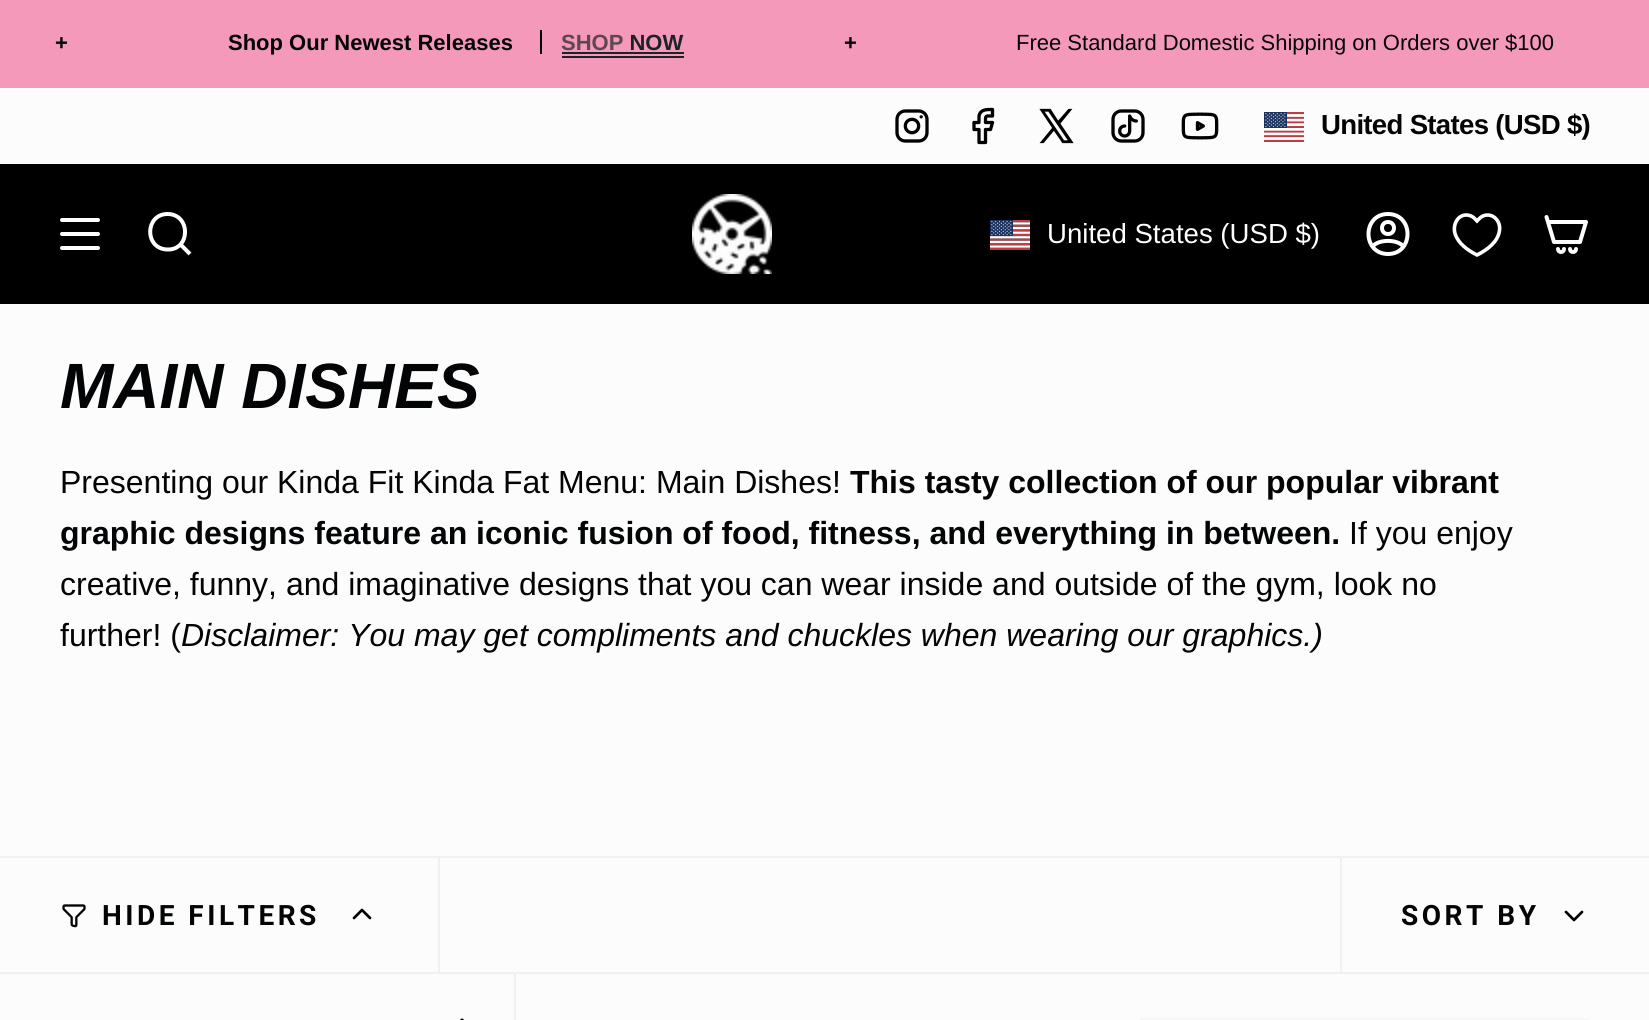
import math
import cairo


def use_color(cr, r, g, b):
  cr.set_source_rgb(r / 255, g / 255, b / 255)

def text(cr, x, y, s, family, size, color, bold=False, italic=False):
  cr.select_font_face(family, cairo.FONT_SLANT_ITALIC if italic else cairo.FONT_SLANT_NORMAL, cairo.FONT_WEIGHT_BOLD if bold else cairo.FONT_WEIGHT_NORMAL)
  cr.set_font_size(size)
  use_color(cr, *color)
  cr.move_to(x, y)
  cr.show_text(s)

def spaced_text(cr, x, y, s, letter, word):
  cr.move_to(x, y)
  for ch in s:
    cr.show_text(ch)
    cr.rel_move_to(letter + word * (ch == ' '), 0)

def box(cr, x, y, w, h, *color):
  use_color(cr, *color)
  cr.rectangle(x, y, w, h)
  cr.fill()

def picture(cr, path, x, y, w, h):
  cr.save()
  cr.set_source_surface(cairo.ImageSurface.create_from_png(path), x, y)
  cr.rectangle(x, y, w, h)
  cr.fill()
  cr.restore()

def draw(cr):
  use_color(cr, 252, 252, 252)
  cr.paint()
  box(cr, 0, 0, 1649, 88, 244, 153, 185)
  box(cr, 540, 30, 2, 24, 0, 0, 0)
  box(cr, 562, 52, 122, 2, 29, 34, 38)
  box(cr, 562, 56, 122, 2, 29, 34, 38)
  picture(cr, "img_01.png", 895, 109, 34, 34)
  cr.new_path()
  cr.move_to(992.5, 109.5)
  cr.curve_to(987, 109.5, 980.5, 109, 979, 116)
  cr.line_to(979, 122.5)
  cr.line_to(974, 122.5)
  cr.line_to(974, 129.5)
  cr.line_to(979, 129.5)
  cr.line_to(979, 142.5)
  cr.line_to(985.5, 142.5)
  cr.line_to(985.5, 129.5)
  cr.line_to(990.5, 129.5)
  cr.line_to(992.5, 122.5)
  cr.line_to(985.5, 122.5)
  cr.curve_to(985.5, 115, 985, 116, 992.5, 116)
  cr.close_path()
  use_color(cr, 0, 0, 0)
  cr.set_line_width(3.3)
  cr.set_line_cap(cairo.LINE_CAP_ROUND)
  cr.set_line_join(cairo.LINE_JOIN_ROUND)
  cr.stroke()
  cr.new_path()
  cr.move_to(1050, 110)
  cr.line_to(1058, 122.5)
  cr.line_to(1069, 110)
  cr.line_to(1070, 110)
  cr.line_to(1059, 123.5)
  cr.line_to(1071.5, 142)
  cr.line_to(1063, 142)
  cr.line_to(1054, 129)
  cr.line_to(1043, 142)
  cr.line_to(1042, 142)
  cr.line_to(1053.5, 128)
  cr.line_to(1041.5, 110)
  cr.close_path()
  cr.move_to(1049, 110.5)
  cr.line_to(1042.5, 110.5)
  cr.line_to(1063.5, 141.5)
  cr.line_to(1070, 141.5)
  cr.close_path()
  cr.set_line_width(2.3)
  cr.set_line_cap(cairo.LINE_CAP_BUTT)
  cr.set_line_join(cairo.LINE_JOIN_MITER)
  cr.stroke()
  picture(cr, "img_02.png", 1111, 109, 34, 34)
  picture(cr, "img_03.png", 1181, 112, 38, 28)
  picture(cr, "img_04.png", 1264, 112, 40, 30)
  box(cr, 0, 164, 1649, 140, 0, 0, 0)
  cr.new_path()
  cr.move_to(62, 220)
  cr.line_to(98, 220)
  cr.move_to(62, 234)
  cr.line_to(98, 234)
  cr.move_to(62, 248)
  cr.line_to(98, 248)
  use_color(cr, 255, 255, 255)
  cr.set_line_width(4)
  cr.set_line_cap(cairo.LINE_CAP_ROUND)
  cr.set_line_join(cairo.LINE_JOIN_ROUND)
  cr.stroke()
  cr.new_path()
  cr.move_to(167.5, 214)
  cr.curve_to(191, 214, 191, 250.5, 167, 249.5)
  cr.curve_to(144, 248.5, 145, 214, 167.5, 214)
  cr.close_path()
  cr.move_to(180, 244)
  cr.line_to(190, 254)
  cr.set_line_cap(cairo.LINE_CAP_BUTT)
  cr.set_line_join(cairo.LINE_JOIN_MITER)
  cr.stroke()
  picture(cr, "img_05.png", 692, 194, 80, 80)
  picture(cr, "img_06.png", 990, 220, 40, 30)
  cr.new_path()
  cr.move_to(1388, 214)
  cr.curve_to(1362, 214, 1362, 254, 1388, 254)
  cr.curve_to(1414, 254, 1414, 214, 1388, 214)
  cr.close_path()
  cr.move_to(1372.5, 246.5)
  cr.curve_to(1378.5, 239, 1397.5, 239, 1403.5, 246.5)
  cr.move_to(1388, 234)
  cr.curve_to(1396, 234, 1396, 222, 1388, 222)
  cr.curve_to(1380, 222, 1380, 234, 1388, 234)
  cr.close_path()
  cr.set_line_cap(cairo.LINE_CAP_ROUND)
  cr.set_line_join(cairo.LINE_JOIN_ROUND)
  cr.stroke()
  cr.new_path()
  cr.move_to(1477, 255)
  cr.curve_to(1468, 250.5, 1458, 243.5, 1455, 233.5)
  cr.curve_to(1452, 223, 1460, 211.5, 1471, 216)
  cr.curve_to(1473.5, 217, 1475, 219, 1477, 221)
  cr.curve_to(1479, 219, 1480.5, 217, 1483, 216)
  cr.curve_to(1492.5, 212, 1501, 221, 1499.5, 230.5)
  cr.curve_to(1498, 242, 1487, 250, 1477, 255)
  cr.close_path()
  cr.set_line_width(3.6)
  cr.set_line_cap(cairo.LINE_CAP_BUTT)
  cr.set_line_join(cairo.LINE_JOIN_MITER)
  cr.stroke()
  cr.new_path()
  cr.move_to(1548, 222)
  cr.line_to(1586, 222)
  cr.line_to(1580, 242)
  cr.line_to(1554, 242)
  cr.close_path()
  cr.move_to(1548, 222)
  cr.line_to(1546.5, 217)
  cr.move_to(1564, 249)
  cr.curve_to(1564, 253, 1558, 253, 1558, 249)
  cr.move_to(1576, 249)
  cr.curve_to(1576, 253, 1570, 253, 1570, 249)
  cr.set_line_width(4)
  cr.set_line_cap(cairo.LINE_CAP_ROUND)
  cr.set_line_join(cairo.LINE_JOIN_ROUND)
  cr.stroke()
  box(cr, 0, 856, 1649, 2, 240, 240, 240)
  box(cr, 0, 972, 1649, 2, 240, 240, 240)
  box(cr, 438, 858, 2, 114, 240, 240, 240)
  picture(cr, "img_07.png", 62, 904, 24, 24)
  cr.new_path()
  cr.move_to(354, 918)
  cr.line_to(362, 910)
  cr.line_to(370, 918)
  use_color(cr, 0, 0, 0)
  cr.set_line_width(2.7)
  cr.stroke()
  box(cr, 1340, 858, 2, 114, 240, 240, 240)
  cr.new_path()
  cr.move_to(1566, 912)
  cr.line_to(1574, 920)
  cr.line_to(1582, 912)
  use_color(cr, 0, 0, 0)
  cr.stroke()
  box(cr, 514, 974, 2, 46, 240, 240, 240)
  cr.new_path()
  cr.move_to(453, 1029)
  cr.line_to(462, 1020)
  cr.line_to(471, 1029)
  use_color(cr, 0, 0, 0)
  cr.set_line_width(3)
  cr.stroke()
  box(cr, 1140, 1018, 450, 2, 247, 247, 247)
  text(cr, 55, 50, "+", "Liberation Sans", 22, (3, 4, 5), bold=True)
  text(cr, 228, 50, "Shop Our Newest Releases", "Liberation Sans", 22, (3, 4, 5), bold=True)
  gradient = cairo.LinearGradient(561, 44, 684, 44)
  gradient.add_color_stop_rgba(0, 0.369, 0.275, 0.322, 1)
  gradient.add_color_stop_rgba(0.5, 0.369, 0.275, 0.322, 1)
  gradient.add_color_stop_rgba(0.5, 0.114, 0.133, 0.149, 1)
  gradient.add_color_stop_rgba(1, 0.114, 0.133, 0.149, 1)
  cr.set_source(gradient)
  cr.move_to(561, 50)
  cr.show_text("SHOP NOW")
  text(cr, 844, 50, "+", "Liberation Sans", 22, (3, 4, 5), bold=True)
  text(cr, 1016, 50, "Free Standard Domestic Shipping on Orders over $100", "Liberation Sans", 22, (3, 4, 5))
  cr.select_font_face("Liberation Sans", cairo.FONT_SLANT_NORMAL, cairo.FONT_WEIGHT_BOLD)
  cr.set_font_size(27.6)
  spaced_text(cr, 1321, 134, "United States (USD $)", -0.7, 0)
  text(cr, 1047, 243, "United States (USD $)", "Liberation Sans", 27.6, (255, 255, 255))
  text(cr, 60, 408, "MAIN DISHES", "Liberation Sans", 64, (3, 4, 5), bold=True, italic=True)
  text(cr, 60, 493, "Presenting our Kinda Fit Kinda Fat Menu: Main Dishes!", "Liberation Sans", 32, (3, 4, 5))
  text(cr, 850, 493, "This tasty collection of our popular vibrant", "Liberation Sans", 32, (3, 4, 5), bold=True)
  text(cr, 60, 544, "graphic designs feature an iconic fusion of food, fitness, and everything in between.", "Liberation Sans", 32, (3, 4, 5), bold=True)
  text(cr, 1349, 544, "If you enjoy", "Liberation Sans", 32, (3, 4, 5))
  text(cr, 60, 595, "creative, funny, and imaginative designs that you can wear inside and outside of the gym, look no", "Liberation Sans", 32, (3, 4, 5))
  text(cr, 60, 646, "further! (", "Liberation Sans", 32, (3, 4, 5))
  text(cr, 181, 646, "Disclaimer: You may get compliments and chuckles when wearing our graphics.)", "Liberation Sans", 32, (3, 4, 5), italic=True)
  cr.select_font_face("Roboto", cairo.FONT_SLANT_NORMAL, cairo.FONT_WEIGHT_BOLD)
  cr.set_font_size(28)
  spaced_text(cr, 102, 925, "HIDE FILTERS", 3.5, 0)
  spaced_text(cr, 1401, 925, "SORT BY", 3.5, 0)


surface = cairo.ImageSurface(cairo.FORMAT_RGB24, 1649, 1020)
cr = cairo.Context(surface)
options = cairo.FontOptions()
options.set_hint_metrics(cairo.HINT_METRICS_OFF)
options.set_hint_style(cairo.HINT_STYLE_NONE)
cr.set_font_options(options)
cr.set_miter_limit(4)
draw(cr)
surface.write_to_png("out.png")
